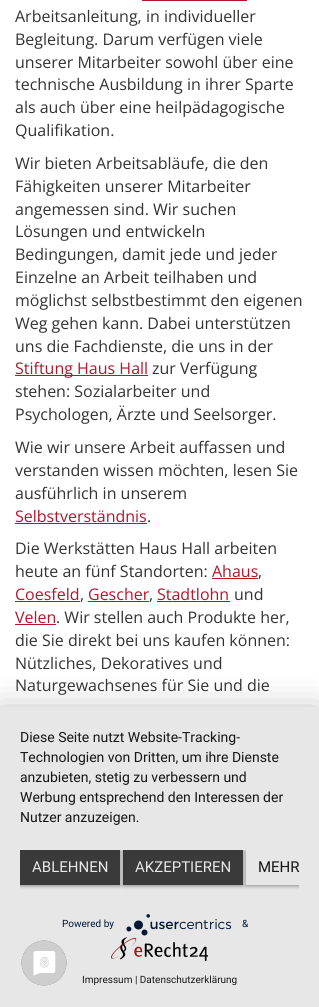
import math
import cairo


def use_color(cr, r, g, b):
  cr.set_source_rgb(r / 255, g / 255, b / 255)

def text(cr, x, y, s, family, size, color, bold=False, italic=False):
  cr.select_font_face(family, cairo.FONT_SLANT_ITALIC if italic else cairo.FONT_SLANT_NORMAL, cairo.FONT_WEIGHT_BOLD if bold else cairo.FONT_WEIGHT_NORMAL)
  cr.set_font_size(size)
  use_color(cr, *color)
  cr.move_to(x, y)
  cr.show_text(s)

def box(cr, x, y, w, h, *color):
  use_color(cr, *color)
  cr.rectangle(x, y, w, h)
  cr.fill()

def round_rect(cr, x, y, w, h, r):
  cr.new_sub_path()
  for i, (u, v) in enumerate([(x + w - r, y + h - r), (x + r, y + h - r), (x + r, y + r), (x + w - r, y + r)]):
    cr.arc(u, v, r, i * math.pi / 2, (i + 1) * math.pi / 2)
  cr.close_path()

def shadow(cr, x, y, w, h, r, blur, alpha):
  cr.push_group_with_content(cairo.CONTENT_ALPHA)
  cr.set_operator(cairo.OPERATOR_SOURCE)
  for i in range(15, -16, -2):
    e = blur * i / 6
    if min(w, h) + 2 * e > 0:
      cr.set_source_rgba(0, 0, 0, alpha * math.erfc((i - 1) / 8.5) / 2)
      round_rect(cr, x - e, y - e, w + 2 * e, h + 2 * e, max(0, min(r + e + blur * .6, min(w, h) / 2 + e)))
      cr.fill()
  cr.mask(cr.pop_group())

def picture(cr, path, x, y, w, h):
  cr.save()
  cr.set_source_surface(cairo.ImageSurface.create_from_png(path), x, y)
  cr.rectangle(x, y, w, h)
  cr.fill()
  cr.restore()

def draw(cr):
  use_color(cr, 255, 255, 255)
  cr.paint()
  box(cr, 142, 0, 105, 1, 181, 21, 43)
  box(cr, 15, 375, 133, 1, 181, 21, 43)
  box(cr, 15, 523, 132, 1, 181, 21, 43)
  box(cr, 212, 578, 46, 1, 181, 21, 43)
  box(cr, 15, 601, 65, 1, 181, 21, 43)
  box(cr, 88, 601, 61, 1, 181, 21, 43)
  box(cr, 157, 601, 73, 1, 181, 21, 43)
  box(cr, 15, 624, 41, 1, 181, 21, 43)
  use_color(cr, 0, 0, 0)
  shadow(cr, 0, 713, 319, 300, 0, 18, 0.3)
  box(cr, 0, 707, 319, 300, 231, 231, 231)
  cr.save()
  cr.rectangle(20, 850, 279, 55)
  cr.clip()
  use_color(cr, 0, 0, 0)
  shadow(cr, 20, 851, 100, 35, 0, 2, 0.4)
  cr.restore()
  box(cr, 20, 850, 100, 35, 58, 58, 58)
  cr.save()
  cr.rectangle(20, 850, 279, 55)
  cr.clip()
  use_color(cr, 0, 0, 0)
  shadow(cr, 123, 851, 120, 35, 0, 2, 0.4)
  cr.restore()
  box(cr, 123, 850, 120, 35, 58, 58, 58)
  cr.save()
  cr.rectangle(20, 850, 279, 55)
  cr.clip()
  use_color(cr, 0, 0, 0)
  shadow(cr, 246, 851, 65, 35, 0, 2, 0.4)
  cr.restore()
  box(cr, 246, 850, 53, 35, 231, 231, 231)
  picture(cr, "img_01.png", 126, 914, 106, 22)
  picture(cr, "img_02.png", 111, 937, 97, 24)
  picture(cr, "img_03.png", 21, 940, 46, 46)
  text(cr, 15, 22, "Arbeitsanleitung, in individueller", "Open Sans", 16, (51, 51, 51))
  text(cr, 15, 45, "Begleitung. Darum verfügen viele", "Open Sans", 16, (51, 51, 51))
  text(cr, 15, 68, "unserer Mitarbeiter sowohl über eine", "Open Sans", 16, (51, 51, 51))
  text(cr, 15, 90, "technische Ausbildung in ihrer Sparte", "Open Sans", 16, (51, 51, 51))
  text(cr, 15, 113, "als auch über eine heilpädagogische", "Open Sans", 16, (51, 51, 51))
  text(cr, 15, 136, "Qualifikation.", "Open Sans", 16, (51, 51, 51))
  text(cr, 15, 169, "Wir bieten Arbeitsabläufe, die den", "Open Sans", 16, (51, 51, 51))
  text(cr, 15, 192, "Fähigkeiten unserer Mitarbeiter", "Open Sans", 16, (51, 51, 51))
  text(cr, 15, 215, "angemessen sind. Wir suchen", "Open Sans", 16, (51, 51, 51))
  text(cr, 15, 237, "Lösungen und entwickeln", "Open Sans", 16, (51, 51, 51))
  text(cr, 15, 260, "Bedingungen, damit jede und jeder", "Open Sans", 16, (51, 51, 51))
  text(cr, 15, 283, "Einzelne an Arbeit teilhaben und", "Open Sans", 16, (51, 51, 51))
  text(cr, 15, 306, "möglichst selbstbestimmt den eigenen", "Open Sans", 16, (51, 51, 51))
  text(cr, 15, 329, "Weg gehen kann. Dabei unterstützen", "Open Sans", 16, (51, 51, 51))
  text(cr, 15, 352, "uns die Fachdienste, die uns in der", "Open Sans", 16, (51, 51, 51))
  text(cr, 15, 374, "Stiftung Haus Hall", "Open Sans", 16, (181, 21, 43))
  text(cr, 152, 374, "zur Verfügung", "Open Sans", 16, (51, 51, 51))
  text(cr, 15, 397, "stehen: Sozialarbeiter und", "Open Sans", 16, (51, 51, 51))
  text(cr, 15, 420, "Psychologen, Ärzte und Seelsorger.", "Open Sans", 16, (51, 51, 51))
  text(cr, 15, 453, "Wie wir unsere Arbeit auffassen und", "Open Sans", 16, (51, 51, 51))
  text(cr, 15, 476, "verstanden wissen möchten, lesen Sie", "Open Sans", 16, (51, 51, 51))
  text(cr, 15, 499, "ausführlich in unserem", "Open Sans", 16, (51, 51, 51))
  text(cr, 15, 522, "Selbstverständnis", "Open Sans", 16, (181, 21, 43))
  text(cr, 147, 522, ".", "Open Sans", 16, (51, 51, 51))
  text(cr, 15, 554, "Die Werkstätten Haus Hall arbeiten", "Open Sans", 16, (51, 51, 51))
  text(cr, 15, 577, "heute an fünf Standorten:", "Open Sans", 16, (51, 51, 51))
  text(cr, 212, 577, "Ahaus", "Open Sans", 16, (181, 21, 43))
  text(cr, 258, 577, ",", "Open Sans", 16, (51, 51, 51))
  text(cr, 15, 600, "Coesfeld", "Open Sans", 16, (181, 21, 43))
  text(cr, 80, 600, ",", "Open Sans", 16, (51, 51, 51))
  text(cr, 88, 600, "Gescher", "Open Sans", 16, (181, 21, 43))
  text(cr, 149, 600, ",", "Open Sans", 16, (51, 51, 51))
  text(cr, 157, 600, "Stadtlohn", "Open Sans", 16, (181, 21, 43))
  text(cr, 234, 600, "und", "Open Sans", 16, (51, 51, 51))
  text(cr, 15, 623, "Velen", "Open Sans", 16, (181, 21, 43))
  text(cr, 56, 623, ". Wir stellen auch Produkte her,", "Open Sans", 16, (51, 51, 51))
  text(cr, 15, 646, "die Sie direkt bei uns kaufen können:", "Open Sans", 16, (51, 51, 51))
  text(cr, 15, 669, "Nützliches, Dekoratives und", "Open Sans", 16, (51, 51, 51))
  text(cr, 15, 691, "Naturgewachsenes für Sie und die", "Open Sans", 16, (51, 51, 51))
  text(cr, 20, 742, "Diese Seite nutzt Website-Tracking-", "Roboto", 14, (22, 22, 22))
  text(cr, 20, 762, "Technologien von Dritten, um ihre Dienste", "Roboto", 14, (22, 22, 22))
  text(cr, 20, 782, "anzubieten, stetig zu verbessern und", "Roboto", 14, (22, 22, 22))
  text(cr, 20, 802, "Werbung entsprechend den Interessen der", "Roboto", 14, (22, 22, 22))
  text(cr, 20, 822, "Nutzer anzuzeigen.", "Roboto", 14, (22, 22, 22))
  text(cr, 32, 872, "ABLEHNEN", "Roboto", 15, (231, 231, 231))
  text(cr, 135, 872, "AKZEPTIEREN", "Roboto", 15, (231, 231, 231))
  text(cr, 258, 872, "MEHR", "Roboto", 15, (22, 22, 22))
  text(cr, 62, 927, "Powered by", "Roboto", 10, (2, 24, 54))
  text(cr, 242, 927, "&", "Roboto", 10, (2, 24, 54))
  text(cr, 82, 983, "Impressum | Datenschutzerklärung", "Roboto", 10, (22, 22, 22))


surface = cairo.ImageSurface(cairo.FORMAT_RGB24, 319, 1007)
cr = cairo.Context(surface)
options = cairo.FontOptions()
options.set_hint_metrics(cairo.HINT_METRICS_OFF)
options.set_hint_style(cairo.HINT_STYLE_NONE)
cr.set_font_options(options)
cr.set_miter_limit(4)
draw(cr)
surface.write_to_png("out.png")
